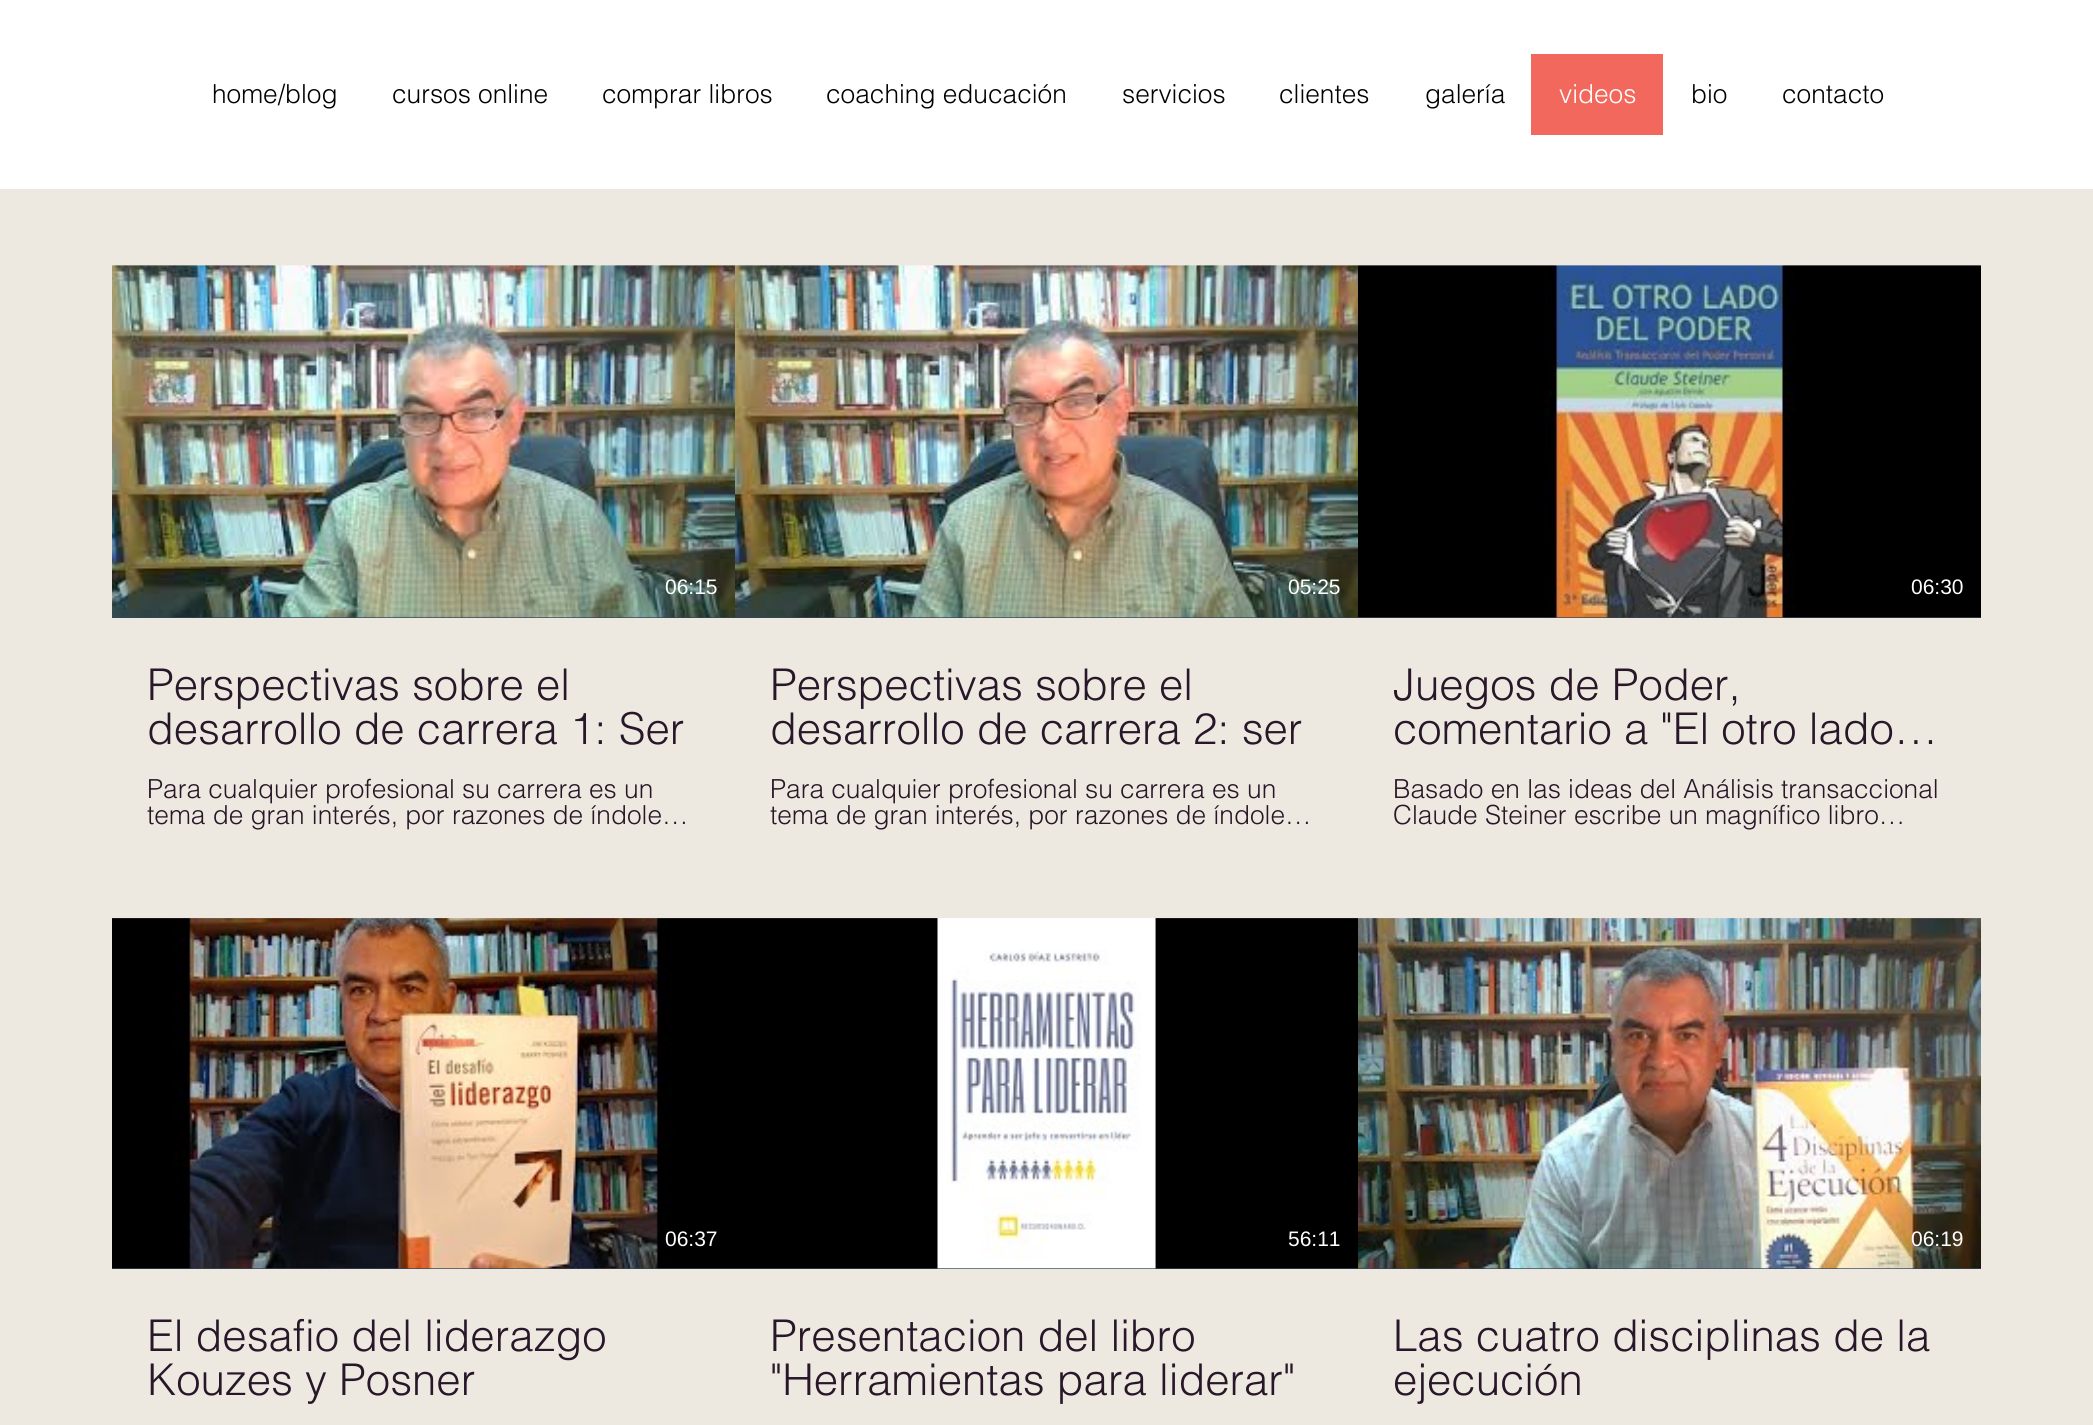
import math
import cairo


def use_color(cr, r, g, b):
  cr.set_source_rgb(r / 255, g / 255, b / 255)

def text(cr, x, y, s, family, size, color, bold=False, italic=False):
  cr.select_font_face(family, cairo.FONT_SLANT_ITALIC if italic else cairo.FONT_SLANT_NORMAL, cairo.FONT_WEIGHT_BOLD if bold else cairo.FONT_WEIGHT_NORMAL)
  cr.set_font_size(size)
  use_color(cr, *color)
  cr.move_to(x, y)
  cr.show_text(s)

def box(cr, x, y, w, h, *color):
  use_color(cr, *color)
  cr.rectangle(x, y, w, h)
  cr.fill()

def picture(cr, path, x, y, w, h):
  cr.save()
  cr.set_source_surface(cairo.ImageSurface.create_from_png(path), x, y)
  cr.rectangle(x, y, w, h)
  cr.fill()
  cr.restore()

def draw(cr):
  use_color(cr, 237, 233, 225)
  cr.paint()
  box(cr, 0, 0, 2093, 189, 255, 255, 255)
  box(cr, 1531, 54, 132, 81, 242, 104, 92)
  box(cr, 112, 617, 1869, 1, 53, 70, 92)
  picture(cr, "img_01.png", 112, 265, 623, 353)
  picture(cr, "img_02.png", 112, 265, 623, 353)
  picture(cr, "img_03.png", 735, 265, 623, 353)
  picture(cr, "img_04.png", 735, 265, 623, 353)
  picture(cr, "img_05.png", 1358, 265, 623, 353)
  picture(cr, "img_06.png", 1358, 265, 623, 353)
  box(cr, 112, 1268, 1869, 1, 53, 70, 92)
  picture(cr, "img_07.png", 112, 918, 623, 351)
  picture(cr, "img_08.png", 112, 918, 623, 351)
  picture(cr, "img_09.png", 735, 918, 623, 351)
  picture(cr, "img_10.png", 735, 918, 623, 351)
  picture(cr, "img_11.png", 1358, 918, 623, 351)
  picture(cr, "img_12.png", 1358, 918, 623, 351)
  text(cr, 212, 103, "home/blog", "helvetica Light", 26.25, (0, 0, 0))
  text(cr, 392, 103, "cursos online", "helvetica Light", 26.25, (0, 0, 0))
  text(cr, 602, 103, "comprar libros", "helvetica Light", 26.25, (0, 0, 0))
  text(cr, 826, 103, "coaching educación", "helvetica Light", 26.25, (0, 0, 0))
  text(cr, 1122, 103, "servicios", "helvetica Light", 26.25, (0, 0, 0))
  text(cr, 1279, 103, "clientes", "helvetica Light", 26.25, (0, 0, 0))
  text(cr, 1425, 103, "galería", "helvetica Light", 26.25, (0, 0, 0))
  text(cr, 1559, 103, "videos", "helvetica Light", 26.25, (255, 255, 255))
  text(cr, 1691, 103, "bio", "helvetica Light", 26.25, (0, 0, 0))
  text(cr, 1782, 103, "contacto", "helvetica Light", 26.25, (0, 0, 0))
  text(cr, 665, 594, "06:15", "Liberation Sans", 21, (255, 255, 255))
  text(cr, 147, 700, "Perspectivas sobre el", "helvetica Light", 43.75, (40, 23, 40))
  text(cr, 147, 744, "desarrollo de carrera 1: Ser", "helvetica Light", 43.75, (40, 23, 40))
  text(cr, 147, 798, "Para cualquier profesional su carrera es un", "helvetica Light", 26.25, (40, 23, 40))
  text(cr, 147, 824, "tema de gran interés, por razones de índole…", "helvetica Light", 26.25, (40, 23, 40))
  text(cr, 1288, 594, "05:25", "Liberation Sans", 21, (255, 255, 255))
  text(cr, 770, 700, "Perspectivas sobre el", "helvetica Light", 43.75, (40, 23, 40))
  text(cr, 770, 744, "desarrollo de carrera 2: ser", "helvetica Light", 43.75, (40, 23, 40))
  text(cr, 770, 798, "Para cualquier profesional su carrera es un", "helvetica Light", 26.25, (40, 23, 40))
  text(cr, 770, 824, "tema de gran interés, por razones de índole…", "helvetica Light", 26.25, (40, 23, 40))
  text(cr, 1911, 594, "06:30", "Liberation Sans", 21, (255, 255, 255))
  text(cr, 1393, 700, "Juegos de Poder,", "helvetica Light", 43.75, (40, 23, 40))
  text(cr, 1393, 744, "comentario a \"El otro lado…", "helvetica Light", 43.75, (40, 23, 40))
  text(cr, 1393, 798, "Basado en las ideas del Análisis transaccional", "helvetica Light", 26.25, (40, 23, 40))
  text(cr, 1393, 824, "Claude Steiner escribe un magnífico libro…", "helvetica Light", 26.25, (40, 23, 40))
  text(cr, 665, 1246, "06:37", "Liberation Sans", 21, (255, 255, 255))
  text(cr, 147, 1351, "El desafio del liderazgo", "helvetica Light", 43.75, (40, 23, 40))
  text(cr, 147, 1395, "Kouzes y Posner", "helvetica Light", 43.75, (40, 23, 40))
  text(cr, 1288, 1246, "56:11", "Liberation Sans", 21, (255, 255, 255))
  text(cr, 770, 1351, "Presentacion del libro", "helvetica Light", 43.75, (40, 23, 40))
  text(cr, 770, 1395, "\"Herramientas para liderar\"", "helvetica Light", 43.75, (40, 23, 40))
  text(cr, 1911, 1246, "06:19", "Liberation Sans", 21, (255, 255, 255))
  text(cr, 1393, 1351, "Las cuatro disciplinas de la", "helvetica Light", 43.75, (40, 23, 40))
  text(cr, 1393, 1395, "ejecución", "helvetica Light", 43.75, (40, 23, 40))


surface = cairo.ImageSurface(cairo.FORMAT_RGB24, 2093, 1425)
cr = cairo.Context(surface)
options = cairo.FontOptions()
options.set_hint_metrics(cairo.HINT_METRICS_OFF)
options.set_hint_style(cairo.HINT_STYLE_NONE)
cr.set_font_options(options)
cr.set_miter_limit(4)
draw(cr)
surface.write_to_png("out.png")
